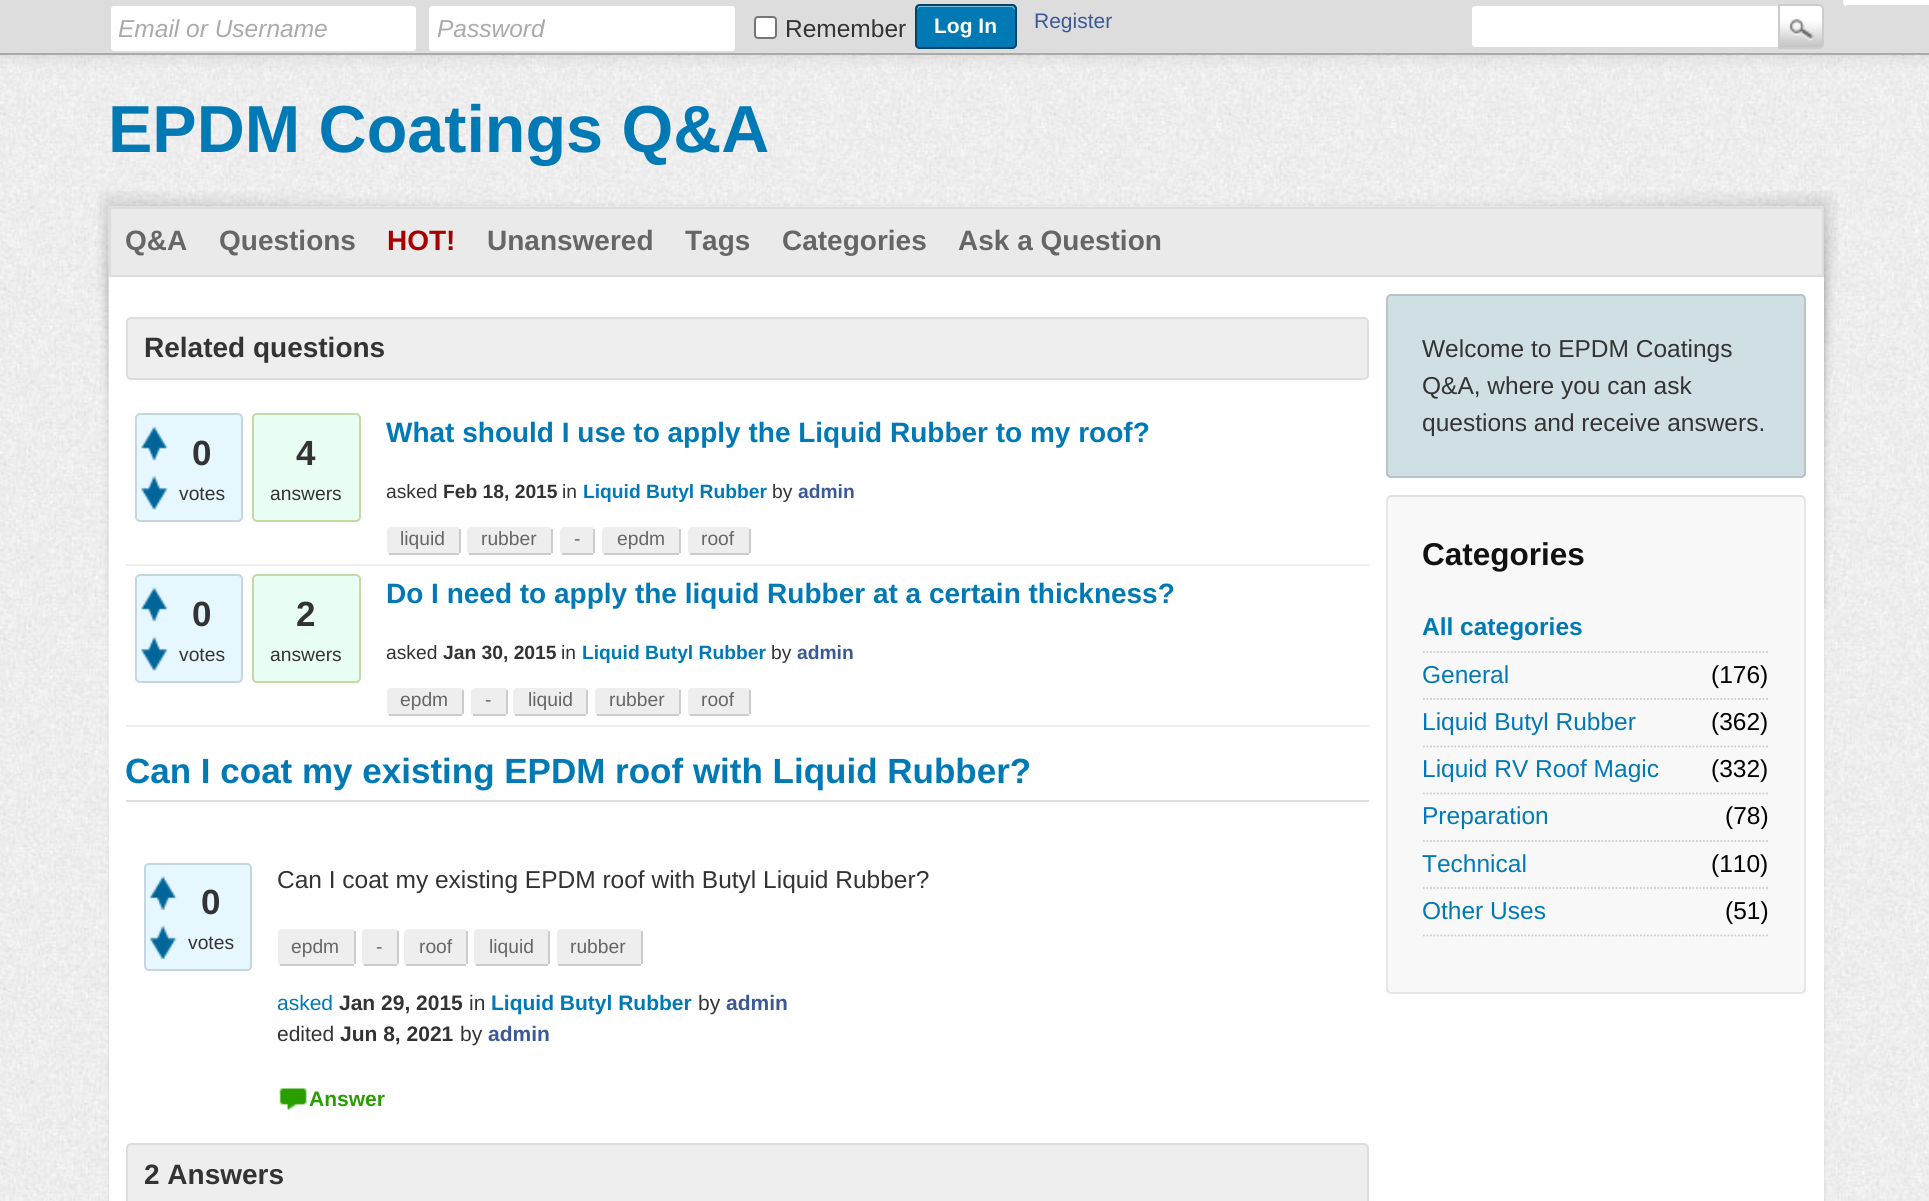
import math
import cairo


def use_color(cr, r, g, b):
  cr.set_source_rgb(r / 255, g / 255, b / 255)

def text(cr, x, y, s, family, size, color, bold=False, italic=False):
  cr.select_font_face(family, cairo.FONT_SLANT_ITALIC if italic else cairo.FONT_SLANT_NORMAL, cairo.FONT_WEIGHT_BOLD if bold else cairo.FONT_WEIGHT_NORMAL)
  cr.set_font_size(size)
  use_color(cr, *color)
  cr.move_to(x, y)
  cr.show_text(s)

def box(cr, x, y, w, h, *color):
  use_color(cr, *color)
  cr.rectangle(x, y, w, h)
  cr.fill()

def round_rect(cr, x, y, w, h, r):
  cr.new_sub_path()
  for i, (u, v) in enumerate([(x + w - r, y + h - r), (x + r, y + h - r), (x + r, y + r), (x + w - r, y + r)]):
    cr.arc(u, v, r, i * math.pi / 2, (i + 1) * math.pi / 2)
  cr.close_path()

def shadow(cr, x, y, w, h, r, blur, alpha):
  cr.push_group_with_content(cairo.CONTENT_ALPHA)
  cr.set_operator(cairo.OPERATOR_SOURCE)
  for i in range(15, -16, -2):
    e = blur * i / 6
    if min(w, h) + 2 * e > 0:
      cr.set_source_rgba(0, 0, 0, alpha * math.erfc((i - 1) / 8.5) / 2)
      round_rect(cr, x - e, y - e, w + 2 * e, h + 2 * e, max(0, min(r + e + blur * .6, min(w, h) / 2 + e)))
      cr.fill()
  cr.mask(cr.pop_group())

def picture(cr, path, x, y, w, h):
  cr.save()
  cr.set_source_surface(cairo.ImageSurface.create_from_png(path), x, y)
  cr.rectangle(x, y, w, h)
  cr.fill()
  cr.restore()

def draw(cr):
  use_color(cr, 255, 255, 255)
  cr.paint()
  picture(cr, "img_01.png", 0, 55, 1929, 1146)
  use_color(cr, 0, 0, 0)
  shadow(cr, 0, 0, 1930, 54, 0, 9, 0.15)
  box(cr, 0, 0, 1929, 53, 221, 221, 221)
  box(cr, 0, 53, 1929, 2, 170, 170, 170)
  use_color(cr, 255, 255, 255)
  round_rect(cr, 110, 5, 307, 47, 4)
  cr.fill_preserve()
  use_color(cr, 221, 221, 221)
  cr.stroke()
  use_color(cr, 255, 255, 255)
  round_rect(cr, 428, 5, 308, 47, 4)
  cr.fill_preserve()
  use_color(cr, 221, 221, 221)
  cr.stroke()
  use_color(cr, 255, 255, 255)
  round_rect(cr, 755, 17, 21, 21, 3)
  cr.fill_preserve()
  use_color(cr, 118, 118, 118)
  cr.stroke()
  use_color(cr, 1, 121, 181)
  round_rect(cr, 915, 4, 102, 45, 5)
  cr.fill()
  use_color(cr, 128, 188, 218)
  cr.new_path()
  cr.move_to(920, 7)
  cr.line_to(1012, 7)
  cr.line_to(1013, 8)
  cr.line_to(1015, 10)
  cr.curve_to(1015, 1, 1000, 5, 996, 5)
  cr.line_to(936, 5)
  cr.curve_to(932, 5, 917, 1, 917, 10)
  cr.curve_to(917, 9, 919, 7, 920, 7)
  cr.close_path()
  cr.fill()
  round_rect(cr, 916, 5, 100, 43, 4)
  use_color(cr, 0, 69, 102)
  cr.stroke()
  use_color(cr, 255, 255, 255)
  cr.new_path()
  cr.move_to(1475, 5)
  cr.line_to(1779, 5)
  cr.line_to(1779, 48)
  cr.line_to(1475, 48)
  cr.curve_to(1473, 48, 1471, 46, 1471, 44)
  cr.line_to(1471, 9)
  cr.curve_to(1471, 7, 1473, 5, 1475, 5)
  cr.close_path()
  cr.fill_preserve()
  use_color(cr, 221, 221, 221)
  cr.stroke()
  picture(cr, "img_02.png", 1780, 5, 44, 44)
  cr.set_source_rgba(1, 1, 1, 0.5)
  cr.new_path()
  cr.move_to(1780, 7)
  cr.line_to(1818, 7)
  cr.curve_to(1820, 7, 1822, 9, 1822, 10)
  cr.line_to(1822, 9)
  cr.curve_to(1822, 7, 1820, 5, 1818, 5)
  cr.line_to(1780, 5)
  cr.close_path()
  cr.fill()
  cr.new_path()
  cr.move_to(1779, 5)
  cr.line_to(1819, 5)
  cr.curve_to(1821, 5, 1823, 7, 1823, 9)
  cr.line_to(1823, 44)
  cr.curve_to(1823, 46, 1821, 48, 1819, 48)
  cr.line_to(1779, 48)
  cr.close_path()
  use_color(cr, 204, 204, 204)
  cr.stroke()
  picture(cr, "img_03.png", 97, 191, 1741, 761)
  use_color(cr, 0, 0, 0)
  shadow(cr, 109, 207, 1715, 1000, 0, 2, 0.1)
  box(cr, 109, 277, 1715, 924, 255, 255, 255)
  box(cr, 112, 210, 1709, 65, 234, 234, 234)
  cr.rectangle(110, 208, 1713, 68)
  use_color(cr, 221, 221, 221)
  cr.stroke()
  use_color(cr, 238, 238, 238)
  round_rect(cr, 127, 318, 1241, 61, 4)
  cr.fill_preserve()
  use_color(cr, 221, 221, 221)
  cr.stroke()
  box(cr, 126, 564, 1243, 2, 238, 238, 238)
  use_color(cr, 231, 247, 255)
  round_rect(cr, 136, 414, 106, 107, 4)
  cr.fill_preserve()
  use_color(cr, 197, 214, 223)
  cr.stroke()
  picture(cr, "img_04.png", 141, 426, 27, 35)
  picture(cr, "img_05.png", 141, 475, 27, 35)
  use_color(cr, 234, 255, 244)
  round_rect(cr, 253, 414, 107, 107, 4)
  cr.fill_preserve()
  use_color(cr, 193, 218, 166)
  cr.stroke()
  use_color(cr, 238, 238, 238)
  round_rect(cr, 387, 527, 73, 28, 4)
  cr.fill()
  box(cr, 459, 529, 2, 24, 204, 204, 204)
  box(cr, 389, 553, 70, 2, 204, 204, 204)
  use_color(cr, 238, 238, 238)
  round_rect(cr, 467, 527, 86, 28, 4)
  cr.fill()
  box(cr, 551, 529, 2, 24, 204, 204, 204)
  box(cr, 469, 553, 82, 2, 204, 204, 204)
  use_color(cr, 238, 238, 238)
  round_rect(cr, 560, 527, 35, 28, 4)
  cr.fill()
  box(cr, 593, 529, 2, 24, 204, 204, 204)
  box(cr, 562, 553, 31, 2, 204, 204, 204)
  use_color(cr, 238, 238, 238)
  round_rect(cr, 602, 527, 79, 28, 4)
  cr.fill()
  box(cr, 679, 529, 2, 24, 204, 204, 204)
  box(cr, 604, 553, 75, 2, 204, 204, 204)
  use_color(cr, 238, 238, 238)
  round_rect(cr, 688, 527, 63, 28, 4)
  cr.fill()
  box(cr, 749, 529, 2, 24, 204, 204, 204)
  box(cr, 690, 553, 59, 2, 204, 204, 204)
  box(cr, 126, 725, 1243, 2, 238, 238, 238)
  use_color(cr, 231, 247, 255)
  round_rect(cr, 136, 575, 106, 107, 4)
  cr.fill_preserve()
  use_color(cr, 197, 214, 223)
  cr.stroke()
  picture(cr, "img_04.png", 141, 587, 27, 35)
  picture(cr, "img_05.png", 141, 636, 27, 35)
  use_color(cr, 234, 255, 244)
  round_rect(cr, 253, 575, 107, 107, 4)
  cr.fill_preserve()
  use_color(cr, 193, 218, 166)
  cr.stroke()
  use_color(cr, 255, 255, 255)
  round_rect(cr, 1843, -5, 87, 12, 5)
  cr.fill()
  box(cr, 1846, 5, 83, 2, 221, 221, 221)
  use_color(cr, 238, 238, 238)
  round_rect(cr, 387, 688, 77, 28, 4)
  cr.fill()
  box(cr, 462, 690, 2, 24, 204, 204, 204)
  box(cr, 389, 714, 73, 2, 204, 204, 204)
  use_color(cr, 238, 238, 238)
  round_rect(cr, 471, 688, 37, 28, 4)
  cr.fill()
  box(cr, 506, 690, 2, 24, 204, 204, 204)
  box(cr, 473, 714, 33, 2, 204, 204, 204)
  use_color(cr, 238, 238, 238)
  round_rect(cr, 513, 688, 75, 28, 4)
  cr.fill()
  box(cr, 586, 690, 2, 24, 204, 204, 204)
  box(cr, 515, 714, 71, 2, 204, 204, 204)
  use_color(cr, 238, 238, 238)
  round_rect(cr, 595, 688, 86, 28, 4)
  cr.fill()
  box(cr, 679, 690, 2, 24, 204, 204, 204)
  box(cr, 597, 714, 82, 2, 204, 204, 204)
  use_color(cr, 238, 238, 238)
  round_rect(cr, 688, 688, 63, 28, 4)
  cr.fill()
  box(cr, 749, 690, 2, 24, 204, 204, 204)
  box(cr, 690, 714, 59, 2, 204, 204, 204)
  box(cr, 126, 800, 1243, 2, 221, 221, 221)
  use_color(cr, 231, 247, 255)
  round_rect(cr, 145, 864, 106, 106, 4)
  cr.fill_preserve()
  use_color(cr, 197, 214, 223)
  cr.stroke()
  picture(cr, "img_06.png", 150, 876, 27, 34)
  picture(cr, "img_07.png", 150, 925, 27, 34)
  use_color(cr, 238, 238, 238)
  round_rect(cr, 278, 929, 77, 37, 4)
  cr.fill()
  box(cr, 354, 931, 2, 33, 204, 204, 204)
  box(cr, 280, 964, 74, 2, 204, 204, 204)
  use_color(cr, 238, 238, 238)
  round_rect(cr, 362, 929, 37, 37, 4)
  cr.fill()
  box(cr, 397, 931, 2, 33, 204, 204, 204)
  box(cr, 364, 964, 33, 2, 204, 204, 204)
  use_color(cr, 238, 238, 238)
  round_rect(cr, 404, 929, 63, 37, 4)
  cr.fill()
  box(cr, 466, 931, 2, 33, 204, 204, 204)
  box(cr, 406, 964, 60, 2, 204, 204, 204)
  use_color(cr, 238, 238, 238)
  round_rect(cr, 474, 929, 76, 37, 4)
  cr.fill()
  box(cr, 548, 931, 2, 33, 204, 204, 204)
  box(cr, 476, 964, 72, 2, 204, 204, 204)
  use_color(cr, 238, 238, 238)
  round_rect(cr, 557, 929, 85, 37, 4)
  cr.fill()
  box(cr, 641, 931, 2, 33, 204, 204, 204)
  box(cr, 558, 964, 83, 2, 204, 204, 204)
  picture(cr, "img_08.png", 278, 1088, 29, 22)
  use_color(cr, 238, 238, 238)
  round_rect(cr, 127, 1144, 1241, 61, 4)
  cr.fill_preserve()
  use_color(cr, 221, 221, 221)
  cr.stroke()
  use_color(cr, 208, 223, 228)
  round_rect(cr, 1387, 295, 418, 182, 4)
  cr.fill_preserve()
  use_color(cr, 182, 196, 200)
  cr.stroke()
  use_color(cr, 248, 248, 248)
  round_rect(cr, 1386, 495, 420, 499, 5)
  cr.fill()
  cr.new_path()
  cr.move_to(1388, 497.5)
  cr.line_to(1391, 496)
  cr.line_to(1801, 496)
  cr.line_to(1804, 497.5)
  use_color(cr, 221, 221, 221)
  cr.set_line_width(1.8)
  cr.stroke()
  cr.new_path()
  cr.move_to(1804, 497.5)
  cr.line_to(1805, 500)
  cr.line_to(1805, 989)
  cr.curve_to(1805, 991, 1803, 993, 1801, 993)
  cr.line_to(1391, 993)
  cr.curve_to(1389, 993, 1387, 991, 1387, 989)
  cr.line_to(1387, 500)
  cr.line_to(1388, 497.5)
  use_color(cr, 229, 229, 229)
  cr.stroke()
  cr.new_path()
  cr.move_to(1423, 652)
  cr.line_to(1769, 652)
  use_color(cr, 204, 204, 204)
  cr.set_dash([1.75, 1.75])
  cr.stroke()
  cr.new_path()
  cr.move_to(1423, 699)
  cr.line_to(1769, 699)
  cr.stroke()
  cr.new_path()
  cr.move_to(1423, 746.5)
  cr.line_to(1769, 746.5)
  cr.stroke()
  cr.new_path()
  cr.move_to(1423, 793.5)
  cr.line_to(1769, 793.5)
  cr.stroke()
  cr.new_path()
  cr.move_to(1423, 841)
  cr.line_to(1769, 841)
  cr.stroke()
  cr.new_path()
  cr.move_to(1423, 888)
  cr.line_to(1769, 888)
  cr.stroke()
  cr.new_path()
  cr.move_to(1423, 935.5)
  cr.line_to(1769, 935.5)
  cr.stroke()
  text(cr, 118, 37, "Email or Username", "Liberation Sans", 24.5, (170, 170, 170), italic=True)
  cr.save()
  cr.rectangle(438, 14, 288, 28)
  cr.clip()
  text(cr, 437, 37, "Password", "Liberation Sans", 24.5, (170, 170, 170), italic=True)
  cr.restore()
  text(cr, 785, 37, "Remember", "Liberation Sans", 24.5, (51, 51, 51))
  text(cr, 934, 33, "Log In", "Liberation Sans", 21, (255, 255, 255), bold=True)
  text(cr, 1034, 28, "Register", "Liberation Sans", 21, (59, 89, 152))
  text(cr, 108, 152, "EPDM Coatings Q&A", "Liberation Sans", 66.5, (1, 121, 181), bold=True)
  text(cr, 125, 250, "Q&A", "Liberation Sans", 28, (102, 102, 102), bold=True)
  text(cr, 219, 250, "Questions", "Liberation Sans", 28, (102, 102, 102), bold=True)
  text(cr, 387, 250, "HOT!", "Liberation Sans", 28, (168, 0, 0), bold=True)
  text(cr, 487, 250, "Unanswered", "Liberation Sans", 28, (102, 102, 102), bold=True)
  text(cr, 685, 250, "Tags", "Liberation Sans", 28, (102, 102, 102), bold=True)
  text(cr, 782, 250, "Categories", "Liberation Sans", 28, (102, 102, 102), bold=True)
  text(cr, 958, 250, "Ask a Question", "Liberation Sans", 28, (102, 102, 102), bold=True)
  text(cr, 144, 357, "Related questions", "Liberation Sans", 28, (51, 51, 51), bold=True)
  text(cr, 192, 465, "0", "Liberation Sans", 35, (51, 51, 51), bold=True)
  text(cr, 179, 500, "votes", "Liberation Sans", 19.25, (51, 51, 51))
  text(cr, 296, 465, "4", "Liberation Sans", 35, (51, 51, 51), bold=True)
  text(cr, 270, 500, "answers", "Liberation Sans", 19.25, (51, 51, 51))
  text(cr, 386, 442, "What should I use to apply the Liquid Rubber to my roof?", "Liberation Sans", 28, (1, 121, 181), bold=True)
  text(cr, 386, 498, "asked", "Liberation Sans", 19.25, (51, 51, 51))
  text(cr, 443, 498, "Feb 18, 2015", "Liberation Sans", 19.25, (51, 51, 51), bold=True)
  text(cr, 562, 498, "in", "Liberation Sans", 19.25, (51, 51, 51))
  text(cr, 583, 498, "Liquid Butyl Rubber", "Liberation Sans", 19.25, (1, 121, 181), bold=True)
  text(cr, 772, 498, "by", "Liberation Sans", 19.25, (51, 51, 51))
  text(cr, 798, 498, "admin", "Liberation Sans", 19.25, (59, 89, 152), bold=True)
  text(cr, 400, 545, "liquid", "Liberation Sans", 19.25, (102, 102, 102))
  text(cr, 481, 545, "rubber", "Liberation Sans", 19.25, (102, 102, 102))
  text(cr, 574, 545, "-", "Liberation Sans", 19.25, (102, 102, 102))
  text(cr, 617, 545, "epdm", "Liberation Sans", 19.25, (102, 102, 102))
  text(cr, 701, 545, "roof", "Liberation Sans", 19.25, (102, 102, 102))
  text(cr, 192, 626, "0", "Liberation Sans", 35, (51, 51, 51), bold=True)
  text(cr, 179, 661, "votes", "Liberation Sans", 19.25, (51, 51, 51))
  text(cr, 296, 626, "2", "Liberation Sans", 35, (51, 51, 51), bold=True)
  text(cr, 270, 661, "answers", "Liberation Sans", 19.25, (51, 51, 51))
  text(cr, 386, 603, "Do I need to apply the liquid Rubber at a certain thickness?", "Liberation Sans", 28, (1, 121, 181), bold=True)
  text(cr, 386, 659, "asked", "Liberation Sans", 19.25, (51, 51, 51))
  text(cr, 443, 659, "Jan 30, 2015", "Liberation Sans", 19.25, (51, 51, 51), bold=True)
  text(cr, 561, 659, "in", "Liberation Sans", 19.25, (51, 51, 51))
  text(cr, 582, 659, "Liquid Butyl Rubber", "Liberation Sans", 19.25, (1, 121, 181), bold=True)
  text(cr, 771, 659, "by", "Liberation Sans", 19.25, (51, 51, 51))
  text(cr, 797, 659, "admin", "Liberation Sans", 19.25, (59, 89, 152), bold=True)
  text(cr, 400, 706, "epdm", "Liberation Sans", 19.25, (102, 102, 102))
  text(cr, 485, 706, "-", "Liberation Sans", 19.25, (102, 102, 102))
  text(cr, 528, 706, "liquid", "Liberation Sans", 19.25, (102, 102, 102))
  text(cr, 609, 706, "rubber", "Liberation Sans", 19.25, (102, 102, 102))
  text(cr, 701, 706, "roof", "Liberation Sans", 19.25, (102, 102, 102))
  text(cr, 125, 783, "Can I coat my existing EPDM roof with Liquid Rubber?", "Liberation Sans", 35, (1, 121, 181), bold=True)
  text(cr, 201, 914, "0", "Liberation Sans", 35, (51, 51, 51), bold=True)
  text(cr, 188, 949, "votes", "Liberation Sans", 19.25, (51, 51, 51))
  text(cr, 277, 888, "Can I coat my existing EPDM roof with Butyl Liquid Rubber?", "Liberation Sans", 24.5, (51, 51, 51))
  text(cr, 291, 953, "epdm", "Liberation Sans", 19.25, (102, 102, 102))
  text(cr, 376, 953, "-", "Liberation Sans", 19.25, (102, 102, 102))
  text(cr, 419, 953, "roof", "Liberation Sans", 19.25, (102, 102, 102))
  text(cr, 489, 953, "liquid", "Liberation Sans", 19.25, (102, 102, 102))
  text(cr, 570, 953, "rubber", "Liberation Sans", 19.25, (102, 102, 102))
  text(cr, 277, 1010, "asked", "Liberation Sans", 21, (1, 121, 181))
  text(cr, 339, 1010, "Jan 29, 2015", "Liberation Sans", 21, (51, 51, 51), bold=True)
  text(cr, 469, 1010, "in", "Liberation Sans", 21, (51, 51, 51))
  text(cr, 491, 1010, "Liquid Butyl Rubber", "Liberation Sans", 21, (1, 121, 181), bold=True)
  text(cr, 698, 1010, "by", "Liberation Sans", 21, (51, 51, 51))
  text(cr, 726, 1010, "admin", "Liberation Sans", 21, (59, 89, 152), bold=True)
  text(cr, 277, 1041, "edited", "Liberation Sans", 21, (51, 51, 51))
  text(cr, 340, 1041, "Jun 8, 2021", "Liberation Sans", 21, (51, 51, 51), bold=True)
  text(cr, 460, 1041, "by", "Liberation Sans", 21, (51, 51, 51))
  text(cr, 488, 1041, "admin", "Liberation Sans", 21, (59, 89, 152), bold=True)
  text(cr, 309, 1106, "Answer", "Liberation Sans", 21, (40, 158, 0), bold=True)
  text(cr, 144, 1184, "2 Answers", "Liberation Sans", 28, (51, 51, 51), bold=True)
  text(cr, 1422, 357, "Welcome to EPDM Coatings", "Liberation Sans", 24.5, (51, 51, 51))
  text(cr, 1422, 394, "Q&A, where you can ask", "Liberation Sans", 24.5, (51, 51, 51))
  text(cr, 1422, 431, "questions and receive answers.", "Liberation Sans", 24.5, (51, 51, 51))
  text(cr, 1422, 565, "Categories", "Liberation Sans", 31.5, (17, 17, 17), bold=True)
  text(cr, 1422, 635, "All categories", "Liberation Sans", 24.5, (1, 121, 181), bold=True)
  text(cr, 1422, 683, "General", "Liberation Sans", 24.5, (1, 121, 181))
  text(cr, 1711, 683, "(176)", "Liberation Sans", 24.5, (0, 0, 0))
  text(cr, 1422, 730, "Liquid Butyl Rubber", "Liberation Sans", 24.5, (1, 121, 181))
  text(cr, 1711, 730, "(362)", "Liberation Sans", 24.5, (0, 0, 0))
  text(cr, 1422, 777, "Liquid RV Roof Magic", "Liberation Sans", 24.5, (1, 121, 181))
  text(cr, 1711, 777, "(332)", "Liberation Sans", 24.5, (0, 0, 0))
  text(cr, 1422, 824, "Preparation", "Liberation Sans", 24.5, (1, 121, 181))
  text(cr, 1725, 824, "(78)", "Liberation Sans", 24.5, (0, 0, 0))
  text(cr, 1422, 872, "Technical", "Liberation Sans", 24.5, (1, 121, 181))
  text(cr, 1711, 872, "(110)", "Liberation Sans", 24.5, (0, 0, 0))
  text(cr, 1422, 919, "Other Uses", "Liberation Sans", 24.5, (1, 121, 181))
  text(cr, 1725, 919, "(51)", "Liberation Sans", 24.5, (0, 0, 0))


surface = cairo.ImageSurface(cairo.FORMAT_RGB24, 1929, 1201)
cr = cairo.Context(surface)
options = cairo.FontOptions()
options.set_hint_metrics(cairo.HINT_METRICS_OFF)
options.set_hint_style(cairo.HINT_STYLE_NONE)
cr.set_font_options(options)
cr.set_miter_limit(4)
draw(cr)
surface.write_to_png("out.png")
